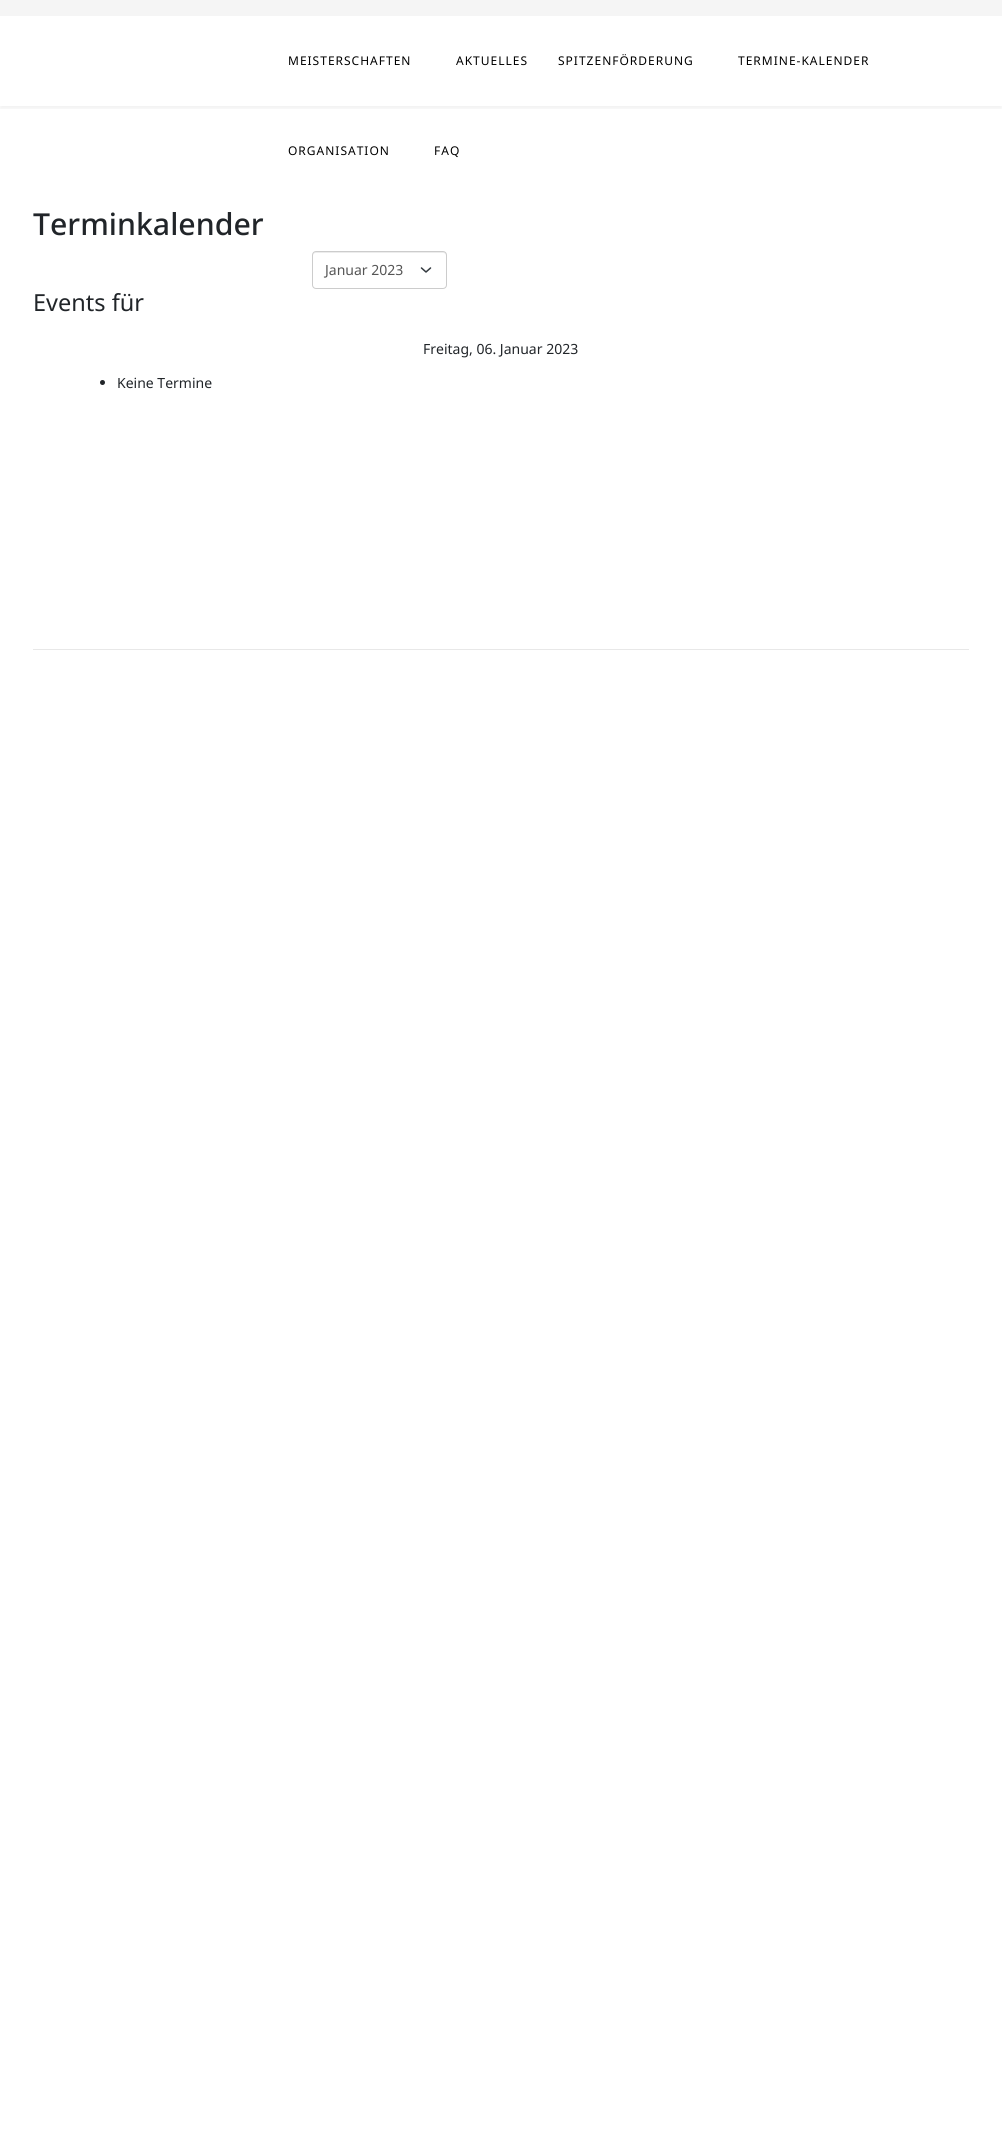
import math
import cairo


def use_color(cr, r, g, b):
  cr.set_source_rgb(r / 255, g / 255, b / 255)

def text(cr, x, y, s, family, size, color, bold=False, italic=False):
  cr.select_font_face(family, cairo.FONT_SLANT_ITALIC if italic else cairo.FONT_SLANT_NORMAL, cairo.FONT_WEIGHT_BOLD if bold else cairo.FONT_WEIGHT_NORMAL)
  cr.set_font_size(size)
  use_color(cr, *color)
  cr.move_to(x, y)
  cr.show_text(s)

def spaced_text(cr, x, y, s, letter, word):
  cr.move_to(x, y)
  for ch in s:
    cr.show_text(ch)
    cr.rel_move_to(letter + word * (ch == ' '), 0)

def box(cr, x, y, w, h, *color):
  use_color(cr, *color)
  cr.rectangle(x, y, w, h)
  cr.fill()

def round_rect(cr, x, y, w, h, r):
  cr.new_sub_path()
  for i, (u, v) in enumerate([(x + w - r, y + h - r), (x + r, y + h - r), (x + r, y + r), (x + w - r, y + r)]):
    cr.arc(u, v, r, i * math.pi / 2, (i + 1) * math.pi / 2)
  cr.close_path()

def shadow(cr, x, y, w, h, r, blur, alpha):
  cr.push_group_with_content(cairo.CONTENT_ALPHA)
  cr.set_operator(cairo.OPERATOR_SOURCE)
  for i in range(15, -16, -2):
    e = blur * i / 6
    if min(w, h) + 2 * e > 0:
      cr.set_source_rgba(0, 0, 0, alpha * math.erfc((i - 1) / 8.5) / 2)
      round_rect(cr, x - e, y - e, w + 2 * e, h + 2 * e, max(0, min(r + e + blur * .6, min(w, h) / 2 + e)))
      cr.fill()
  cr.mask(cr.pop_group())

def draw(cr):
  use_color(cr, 255, 255, 255)
  cr.paint()
  box(cr, 0, 0, 1002, 16, 245, 245, 245)
  cr.save()
  cr.rectangle(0, 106, 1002, 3)
  cr.clip()
  use_color(cr, 0, 0, 0)
  shadow(cr, 0, 19, 1002, 90, 0, 1.5, 0.05)
  cr.restore()
  cr.new_path()
  cr.move_to(421.5, 268)
  cr.line_to(426, 272)
  cr.line_to(430.5, 268)
  use_color(cr, 52, 58, 64)
  cr.set_line_width(1.5)
  cr.set_line_cap(cairo.LINE_CAP_ROUND)
  cr.set_line_join(cairo.LINE_JOIN_ROUND)
  cr.stroke()
  use_color(cr, 236, 236, 236)
  cr.new_path()
  cr.move_to(316, 253)
  cr.line_to(443, 253)
  cr.curve_to(445, 253, 446, 254, 446, 256)
  cr.curve_to(446, 254, 446, 252, 444, 252)
  cr.line_to(315, 252)
  cr.curve_to(313, 252, 313, 254, 313, 256)
  cr.curve_to(313, 254, 314, 253, 316, 253)
  cr.close_path()
  cr.fill()
  round_rect(cr, 312.5, 251.5, 134, 37, 3.5)
  use_color(cr, 204, 204, 204)
  cr.set_line_width(1)
  cr.set_line_cap(cairo.LINE_CAP_BUTT)
  cr.set_line_join(cairo.LINE_JOIN_MITER)
  cr.stroke()
  use_color(cr, 33, 37, 41)
  cr.arc(102.5, 382.5, 2.5, 0, 2 * math.pi)
  cr.fill()
  box(cr, 33, 649, 936, 1, 232, 232, 232)
  cr.select_font_face("Noto Sans")
  cr.set_font_size(12)
  use_color(cr, 0, 0, 0)
  spaced_text(cr, 288, 65, "MEISTERSCHAFTEN", 1, 0)
  spaced_text(cr, 456, 65, "AKTUELLES", 1, 0)
  spaced_text(cr, 558, 65, "SPITZENFÖRDERUNG", 1, 0)
  spaced_text(cr, 738, 65, "TERMINE-KALENDER", 1, 0)
  spaced_text(cr, 288, 155, "ORGANISATION", 1, 0)
  spaced_text(cr, 434, 155, "FAQ", 1, 0)
  text(cr, 33, 235, "Terminkalender", "Noto Sans Medium", 30.25, (33, 37, 41))
  text(cr, 325, 275, "Januar 2023", "Noto Sans", 14, (85, 85, 85))
  text(cr, 33, 311, "Events für", "Noto Sans", 23.5, (33, 37, 41))
  text(cr, 423, 354, "Freitag, 06. Januar 2023", "Noto Sans", 14, (33, 37, 41))
  text(cr, 117, 388, "Keine Termine", "Noto Sans", 14, (33, 37, 41))


surface = cairo.ImageSurface(cairo.FORMAT_RGB24, 1002, 2146)
cr = cairo.Context(surface)
options = cairo.FontOptions()
options.set_hint_metrics(cairo.HINT_METRICS_OFF)
options.set_hint_style(cairo.HINT_STYLE_NONE)
cr.set_font_options(options)
cr.set_miter_limit(4)
draw(cr)
surface.write_to_png("out.png")
